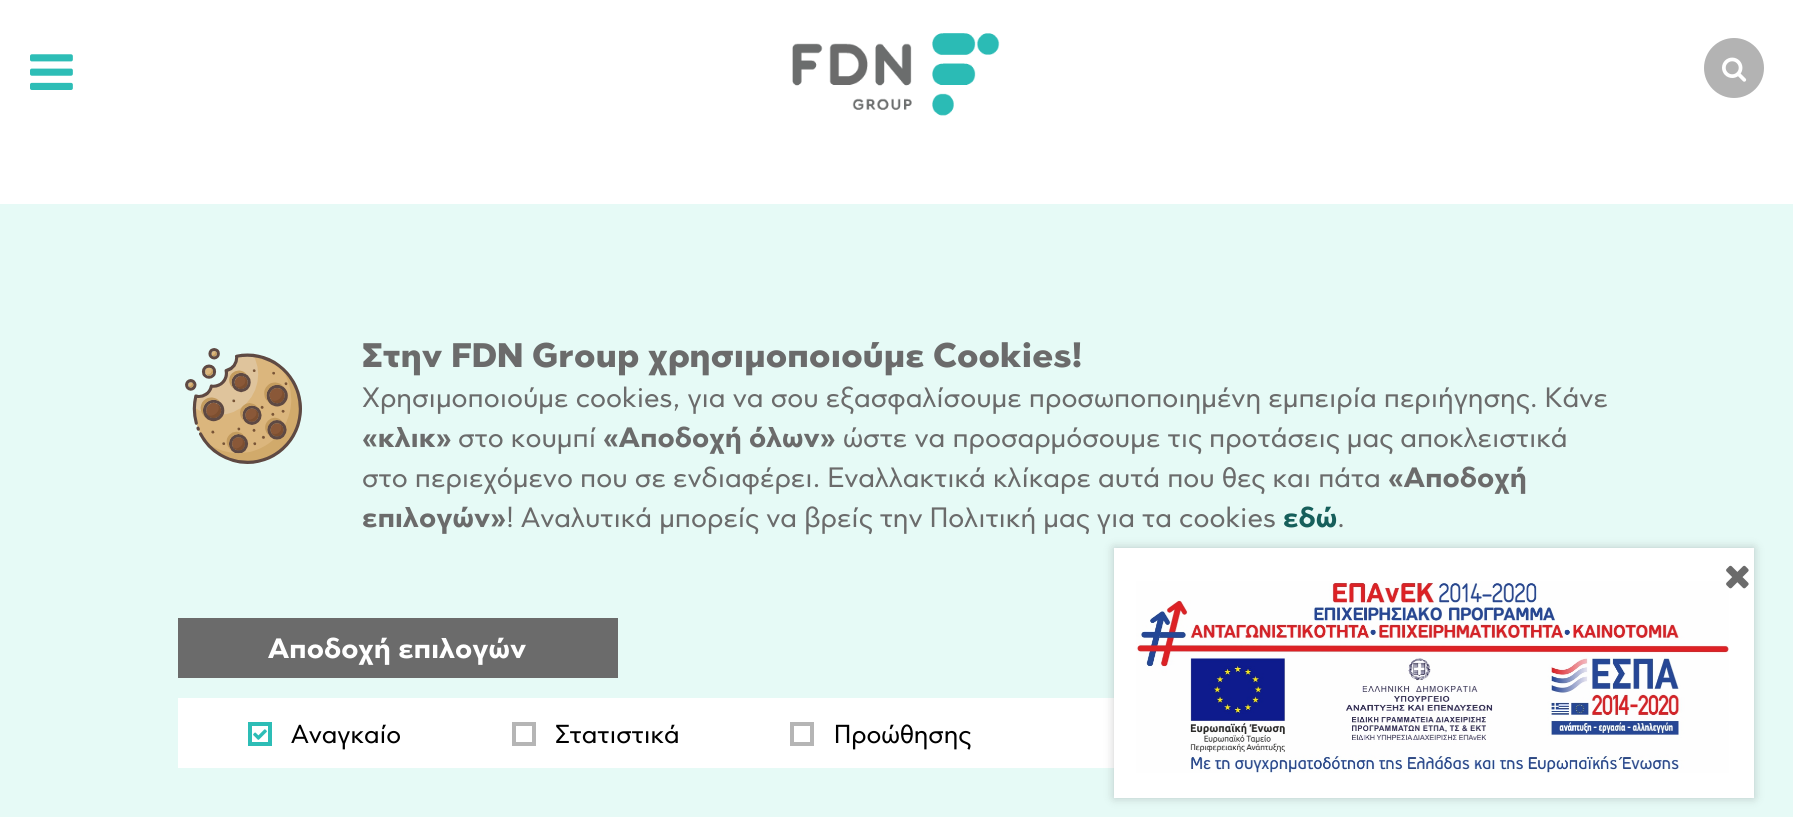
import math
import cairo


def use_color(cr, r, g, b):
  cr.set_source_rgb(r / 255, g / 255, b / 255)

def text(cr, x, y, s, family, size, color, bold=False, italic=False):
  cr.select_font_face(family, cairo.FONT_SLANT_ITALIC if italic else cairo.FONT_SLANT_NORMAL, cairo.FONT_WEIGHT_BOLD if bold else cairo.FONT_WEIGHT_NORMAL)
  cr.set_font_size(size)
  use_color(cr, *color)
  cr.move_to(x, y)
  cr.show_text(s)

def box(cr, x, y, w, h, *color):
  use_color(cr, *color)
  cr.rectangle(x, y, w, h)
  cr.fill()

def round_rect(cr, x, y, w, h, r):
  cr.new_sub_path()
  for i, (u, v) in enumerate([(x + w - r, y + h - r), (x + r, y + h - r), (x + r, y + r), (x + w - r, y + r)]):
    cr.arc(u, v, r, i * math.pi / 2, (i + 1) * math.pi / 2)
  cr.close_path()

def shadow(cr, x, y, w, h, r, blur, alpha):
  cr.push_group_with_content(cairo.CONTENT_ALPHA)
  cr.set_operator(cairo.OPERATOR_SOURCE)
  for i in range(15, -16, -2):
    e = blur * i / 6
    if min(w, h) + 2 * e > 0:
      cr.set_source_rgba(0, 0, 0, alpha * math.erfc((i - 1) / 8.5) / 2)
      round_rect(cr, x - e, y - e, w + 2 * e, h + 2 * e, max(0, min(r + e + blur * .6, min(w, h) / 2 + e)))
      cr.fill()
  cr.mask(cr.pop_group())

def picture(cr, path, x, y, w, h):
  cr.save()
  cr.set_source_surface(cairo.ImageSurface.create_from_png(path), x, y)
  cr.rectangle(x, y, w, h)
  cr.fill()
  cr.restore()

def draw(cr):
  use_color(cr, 255, 255, 255)
  cr.paint()
  picture(cr, "img_01.png", 30, 54, 43, 36)
  picture(cr, "img_02.png", 792, 33, 208, 83)
  use_color(cr, 179, 179, 179)
  cr.arc(1734, 68, 30, 0, 2 * math.pi)
  cr.fill()
  picture(cr, "img_03.png", 1722, 57, 25, 25)
  box(cr, 0, 204, 1793, 613, 230, 250, 246)
  picture(cr, "img_04.png", 185, 348, 117, 116)
  box(cr, 178, 618, 440, 60, 107, 107, 107)
  box(cr, 178, 698, 936, 70, 255, 255, 255)
  cr.rectangle(250, 724, 20, 20)
  use_color(cr, 45, 189, 182)
  cr.set_line_width(4)
  cr.stroke()
  picture(cr, "img_05.png", 253, 729, 14, 11)
  cr.rectangle(514, 724, 20, 20)
  use_color(cr, 181, 181, 181)
  cr.stroke()
  cr.rectangle(792, 724, 20, 20)
  cr.stroke()
  use_color(cr, 0, 0, 0)
  shadow(cr, 1114, 548, 640, 250, 0, 5, 0.2)
  box(cr, 1114, 548, 640, 250, 255, 255, 255)
  picture(cr, "img_07.png", 1136, 581, 593, 192)
  picture(cr, "img_06.png", 1726, 565, 23, 24)
  text(cr, 362, 367, "Στην FDN Group χρησιμοποιούμε Cookies!", "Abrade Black", 34, (107, 107, 107))
  text(cr, 362, 407, "Χρησιμοποιούμε cookies, για να σου εξασφαλίσουμε προσωποποιημένη εμπειρία περιήγησης. Κάνε", "Abrade", 28, (107, 107, 107))
  text(cr, 362, 447, "«κλικ»", "Abrade", 28, (107, 107, 107), bold=True)
  text(cr, 458, 447, "στο κουμπί", "Abrade", 28, (107, 107, 107))
  text(cr, 603, 447, "«Αποδοχή όλων»", "Abrade", 28, (107, 107, 107), bold=True)
  text(cr, 843, 447, "ώστε να προσαρμόσουμε τις προτάσεις μας αποκλειστικά", "Abrade", 28, (107, 107, 107))
  text(cr, 362, 487, "στο περιεχόμενο που σε ενδιαφέρει. Εναλλακτικά κλίκαρε αυτά που θες και πάτα", "Abrade", 28, (107, 107, 107))
  text(cr, 1388, 487, "«Αποδοχή", "Abrade", 28, (107, 107, 107), bold=True)
  text(cr, 362, 527, "επιλογών»", "Abrade", 28, (107, 107, 107), bold=True)
  text(cr, 506, 527, "! Αναλυτικά μπορείς να βρείς την Πολιτική μας για τα cookies", "Abrade", 28, (107, 107, 107))
  text(cr, 1283, 527, "εδώ", "Abrade", 28, (22, 95, 91), bold=True)
  text(cr, 1337, 527, ".", "Abrade", 28, (107, 107, 107))
  text(cr, 268, 658, "Αποδοχή επιλογών", "Abrade", 28, (255, 255, 255), bold=True)
  text(cr, 291, 743, "Αναγκαίο", "Abrade", 26, (0, 0, 0))
  text(cr, 555, 743, "Στατιστικά", "Abrade", 26, (0, 0, 0))
  text(cr, 834, 743, "Προώθησης", "Abrade", 26, (0, 0, 0))


surface = cairo.ImageSurface(cairo.FORMAT_RGB24, 1793, 817)
cr = cairo.Context(surface)
options = cairo.FontOptions()
options.set_hint_metrics(cairo.HINT_METRICS_OFF)
options.set_hint_style(cairo.HINT_STYLE_NONE)
cr.set_font_options(options)
cr.set_miter_limit(4)
draw(cr)
surface.write_to_png("out.png")
